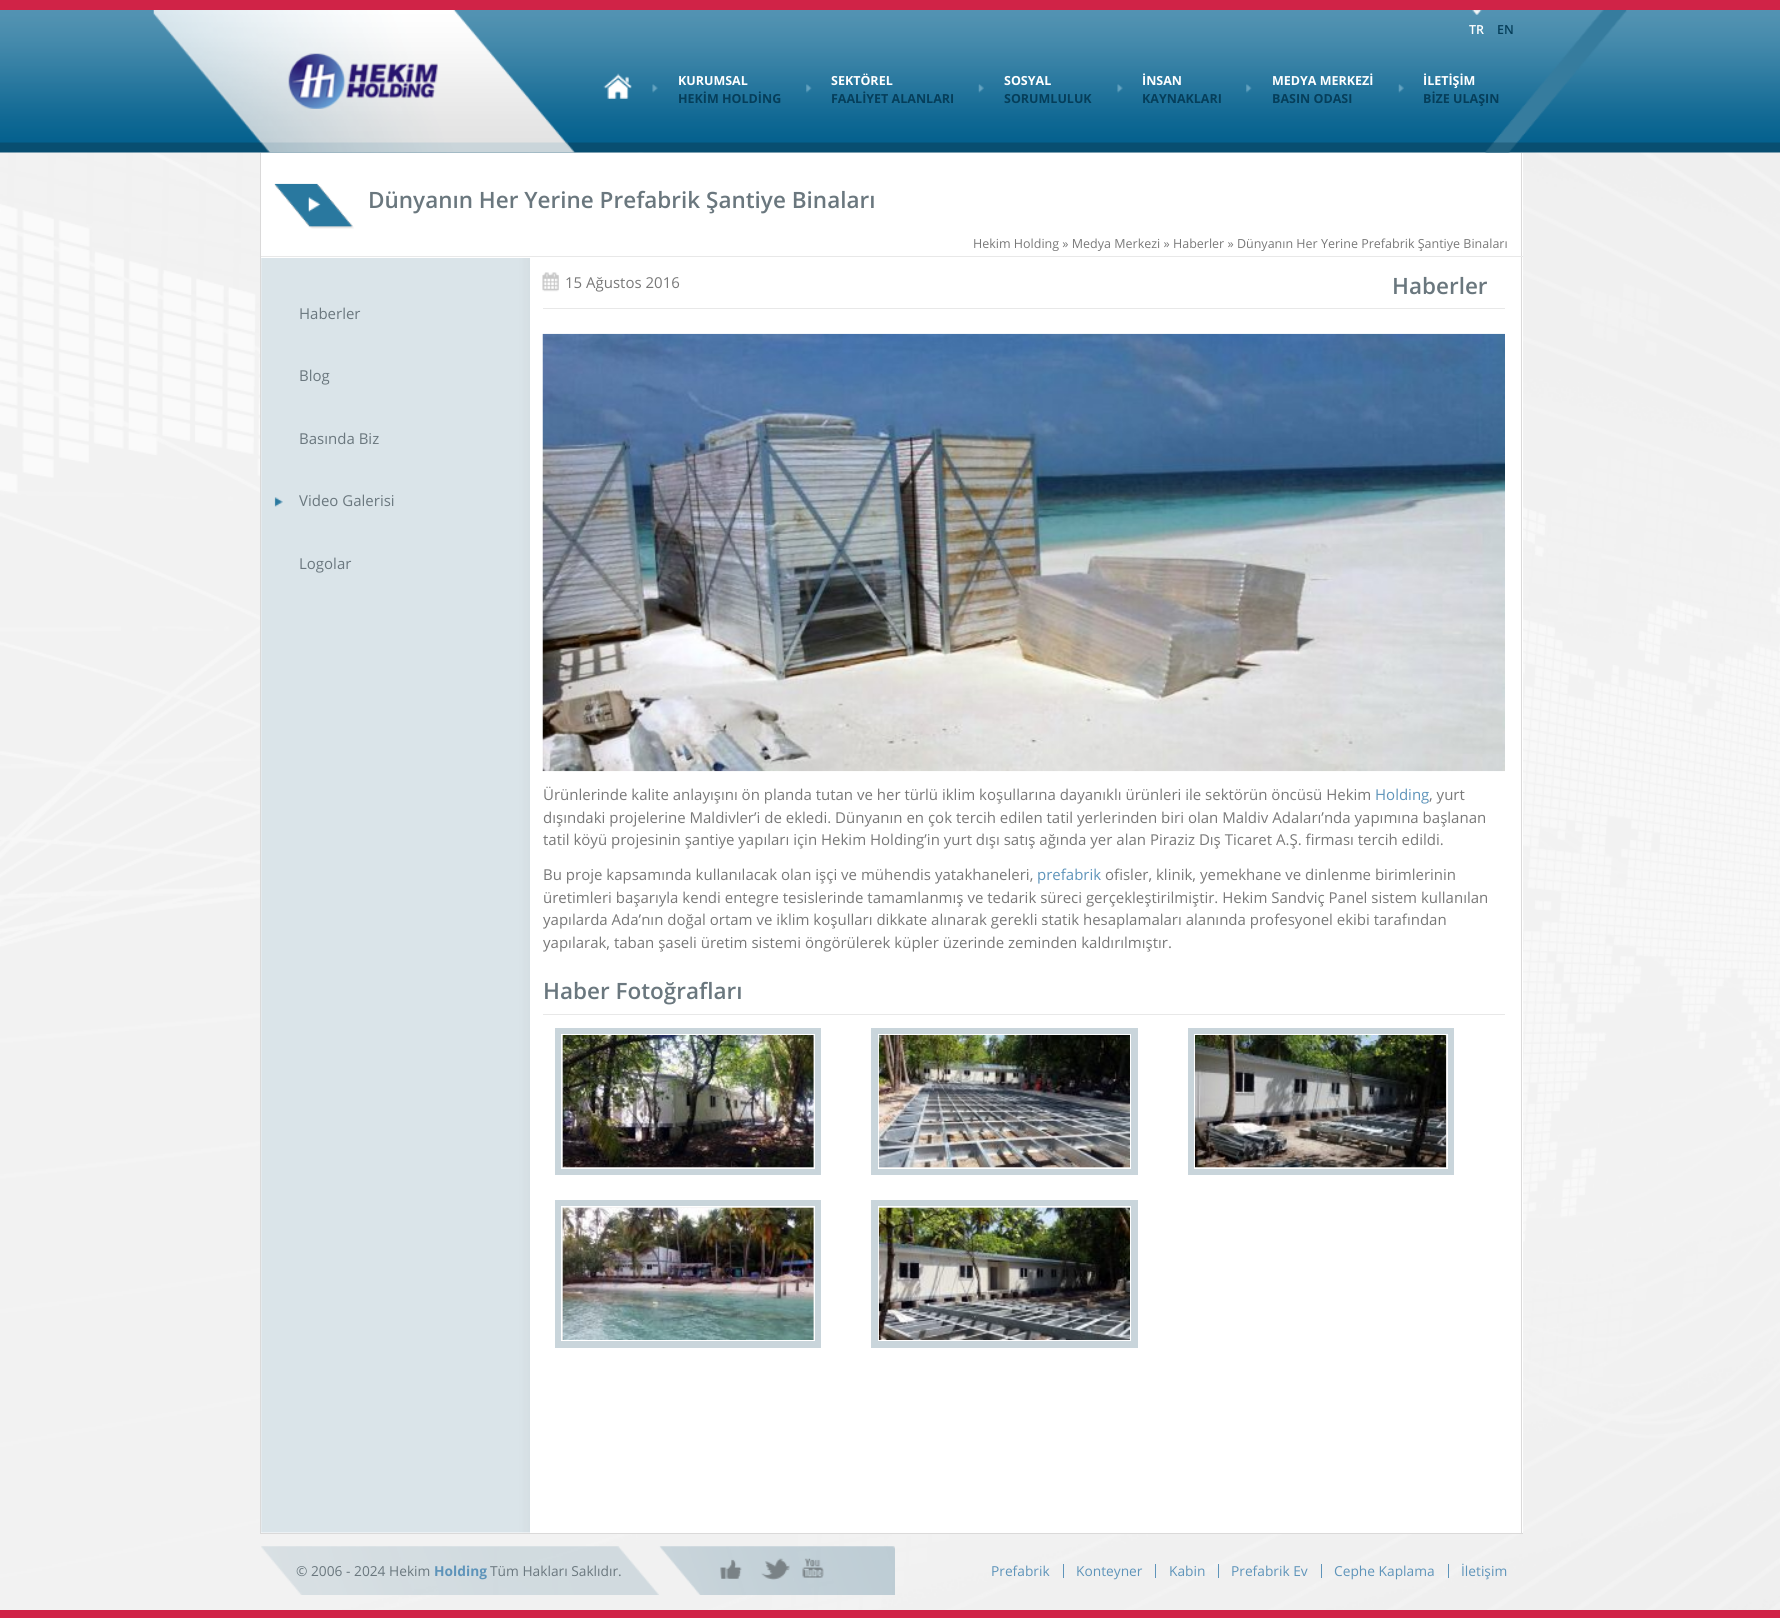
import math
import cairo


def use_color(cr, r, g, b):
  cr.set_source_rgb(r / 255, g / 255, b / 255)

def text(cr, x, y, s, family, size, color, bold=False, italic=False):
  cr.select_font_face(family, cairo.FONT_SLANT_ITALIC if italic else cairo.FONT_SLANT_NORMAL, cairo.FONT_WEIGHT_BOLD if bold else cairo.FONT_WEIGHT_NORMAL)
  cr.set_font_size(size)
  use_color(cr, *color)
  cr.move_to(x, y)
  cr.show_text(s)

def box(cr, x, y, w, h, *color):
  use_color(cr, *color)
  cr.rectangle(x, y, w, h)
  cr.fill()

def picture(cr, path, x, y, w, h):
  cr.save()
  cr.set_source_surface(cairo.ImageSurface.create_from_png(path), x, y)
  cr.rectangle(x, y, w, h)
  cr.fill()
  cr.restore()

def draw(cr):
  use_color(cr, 255, 255, 255)
  cr.paint()
  picture(cr, "img_01.png", 0, 152, 1780, 1458)
  box(cr, 0, 0, 1780, 10, 208, 35, 71)
  picture(cr, "img_02.png", 0, 10, 1780, 143)
  picture(cr, "img_03.png", 153, 10, 1474, 143)
  picture(cr, "img_04.png", 1472, 10, 10, 5)
  picture(cr, "img_05.png", 288, 53, 150, 56)
  picture(cr, "img_06.png", 603, 73, 29, 26)
  picture(cr, "img_07.png", 652, 84, 6, 9)
  picture(cr, "img_08.png", 806, 84, 6, 9)
  picture(cr, "img_09.png", 978, 84, 6, 9)
  picture(cr, "img_07.png", 1117, 84, 6, 9)
  picture(cr, "img_08.png", 1246, 84, 6, 9)
  picture(cr, "img_09.png", 1398, 84, 6, 9)
  box(cr, 261, 153, 1262, 1380, 255, 255, 255)
  box(cr, 1521, 153, 1, 1381, 218, 217, 217)
  box(cr, 260, 256, 1263, 1, 232, 232, 232)
  box(cr, 260, 153, 1, 105, 218, 217, 217)
  picture(cr, "img_10.png", 274, 183, 80, 46)
  box(cr, 260, 1533, 1263, 1, 218, 217, 217)
  box(cr, 260, 258, 1, 1276, 218, 217, 217)
  picture(cr, "img_11.png", 261, 258, 269, 1275)
  picture(cr, "img_12.png", 274, 497, 9, 10)
  box(cr, 543, 308, 962, 1, 232, 232, 232)
  picture(cr, "img_13.png", 542, 272, 17, 20)
  picture(cr, "img_14.png", 542, 333, 963, 439)
  box(cr, 543, 1014, 962, 1, 232, 232, 232)
  box(cr, 555, 1028, 266, 147, 201, 213, 219)
  use_color(cr, 242, 242, 242)
  cr.rectangle(561.5, 1034.5, 253, 134)
  cr.fill_preserve()
  use_color(cr, 255, 255, 255)
  cr.set_line_width(1)
  cr.stroke()
  picture(cr, "img_15.png", 562, 1035, 252, 133)
  box(cr, 871, 1028, 267, 147, 201, 213, 219)
  box(cr, 879, 1167, 251, 1, 242, 242, 242)
  cr.rectangle(878.5, 1034.5, 252, 134)
  use_color(cr, 255, 255, 255)
  cr.stroke()
  picture(cr, "img_16.png", 878, 1035, 252, 133)
  box(cr, 1188, 1028, 266, 147, 201, 213, 219)
  use_color(cr, 242, 242, 242)
  cr.rectangle(1194.5, 1034.5, 253, 134)
  cr.fill_preserve()
  use_color(cr, 255, 255, 255)
  cr.stroke()
  picture(cr, "img_17.png", 1195, 1035, 252, 133)
  box(cr, 555, 1200, 266, 148, 201, 213, 219)
  use_color(cr, 242, 242, 242)
  cr.rectangle(561.5, 1206.5, 253, 134)
  cr.fill_preserve()
  use_color(cr, 255, 255, 255)
  cr.stroke()
  picture(cr, "img_18.png", 562, 1207, 252, 133)
  box(cr, 871, 1200, 267, 148, 201, 213, 219)
  box(cr, 879, 1207, 251, 1, 242, 242, 242)
  cr.rectangle(878.5, 1206.5, 252, 134)
  use_color(cr, 255, 255, 255)
  cr.stroke()
  picture(cr, "img_19.png", 878, 1207, 252, 133)
  box(cr, 0, 1610, 1780, 8, 208, 35, 71)
  picture(cr, "img_20.png", 261, 1546, 634, 49)
  picture(cr, "img_21.png", 720, 1559, 22, 20)
  picture(cr, "img_22.png", 761, 1558, 29, 22)
  picture(cr, "img_23.png", 802, 1558, 22, 20)
  box(cr, 1063, 1564, 1, 14, 94, 148, 186)
  box(cr, 1155, 1564, 1, 14, 94, 148, 186)
  box(cr, 1218, 1564, 1, 14, 94, 148, 186)
  box(cr, 1321, 1564, 1, 14, 94, 148, 186)
  box(cr, 1448, 1564, 1, 14, 94, 148, 186)
  text(cr, 1469, 34, "TR", "Open Sans SemiBold", 12.5, (255, 255, 255))
  text(cr, 1497, 34, "EN", "Open Sans SemiBold", 12.5, (5, 62, 90))
  text(cr, 678, 85, "KURUMSAL", "Open Sans", 12.5, (255, 255, 255), bold=True)
  text(cr, 678, 103, "HEKİM HOLDİNG", "Open Sans", 12.5, (5, 62, 90), bold=True)
  text(cr, 831, 85, "SEKTÖREL", "Open Sans", 12.5, (255, 255, 255), bold=True)
  text(cr, 831, 103, "FAALİYET ALANLARI", "Open Sans", 12.5, (5, 62, 90), bold=True)
  text(cr, 1004, 85, "SOSYAL", "Open Sans", 12.5, (255, 255, 255), bold=True)
  text(cr, 1004, 103, "SORUMLULUK", "Open Sans", 12.5, (5, 62, 90), bold=True)
  text(cr, 1142, 85, "İNSAN", "Open Sans", 12.5, (255, 255, 255), bold=True)
  text(cr, 1142, 103, "KAYNAKLARI", "Open Sans", 12.5, (5, 62, 90), bold=True)
  text(cr, 1272, 85, "MEDYA MERKEZİ", "Open Sans", 12.5, (255, 255, 255), bold=True)
  text(cr, 1272, 103, "BASIN ODASI", "Open Sans", 12.5, (5, 62, 90), bold=True)
  text(cr, 1423, 85, "İLETİŞİM", "Open Sans", 12.5, (255, 255, 255), bold=True)
  text(cr, 1423, 103, "BİZE ULAŞIN", "Open Sans", 12.5, (5, 62, 90), bold=True)
  text(cr, 368, 208, "Dünyanın Her Yerine Prefabrik Şantiye Binaları", "Open Sans SemiBold", 22.5, (106, 119, 126))
  text(cr, 973, 248, "Hekim Holding » Medya Merkezi » Haberler » Dünyanın Her Yerine Prefabrik Şantiye Binaları", "Open Sans", 12.5, (120, 120, 120))
  text(cr, 299, 319, "Haberler", "Open Sans", 15, (106, 119, 126))
  text(cr, 299, 381, "Blog", "Open Sans", 15, (106, 119, 126))
  text(cr, 299, 444, "Basında Biz", "Open Sans", 15, (106, 119, 126))
  text(cr, 299, 506, "Video Galerisi", "Open Sans", 15, (106, 119, 126))
  text(cr, 299, 569, "Logolar", "Open Sans", 15, (106, 119, 126))
  text(cr, 565, 288, "15 Ağustos 2016", "Open Sans", 15, (120, 120, 120))
  text(cr, 1392, 294, "Haberler", "Open Sans SemiBold", 22.5, (106, 119, 126))
  text(cr, 543, 800, "Ürünlerinde kalite anlayışını ön planda tutan ve her türlü iklim koşullarına dayanıklı ürünleri ile sektörün öncüsü Hekim", "Open Sans", 15, (120, 120, 120))
  text(cr, 1375, 800, "Holding", "Open Sans", 15, (94, 148, 186))
  text(cr, 1429, 800, ", yurt", "Open Sans", 15, (120, 120, 120))
  text(cr, 543, 823, "dışındaki projelerine Maldivler’i de ekledi. Dünyanın en çok tercih edilen tatil yerlerinden biri olan Maldiv Adaları’nda yapımına başlanan", "Open Sans", 15, (120, 120, 120))
  text(cr, 543, 845, "tatil köyü projesinin şantiye yapıları için Hekim Holding’in yurt dışı satış ağında yer alan Piraziz Dış Ticaret A.Ş. firması tercih edildi.", "Open Sans", 15, (120, 120, 120))
  text(cr, 543, 880, "Bu proje kapsamında kullanılacak olan işçi ve mühendis yatakhaneleri,", "Open Sans", 15, (120, 120, 120))
  text(cr, 1037, 880, "prefabrik", "Open Sans", 15, (94, 148, 186))
  text(cr, 1105, 880, "ofisler, klinik, yemekhane ve dinlenme birimlerinin", "Open Sans", 15, (120, 120, 120))
  text(cr, 543, 903, "üretimleri başarıyla kendi entegre tesislerinde tamamlanmış ve tedarik süreci gerçekleştirilmiştir. Hekim Sandviç Panel sistem kullanılan", "Open Sans", 15, (120, 120, 120))
  text(cr, 543, 925, "yapılarda Ada’nın doğal ortam ve iklim koşulları dikkate alınarak gerekli statik hesaplamaları alanında profesyonel ekibi tarafından", "Open Sans", 15, (120, 120, 120))
  text(cr, 543, 948, "yapılarak, taban şaseli üretim sistemi öngörülerek küpler üzerinde zeminden kaldırılmıştır.", "Open Sans", 15, (120, 120, 120))
  text(cr, 543, 999, "Haber Fotoğrafları", "Open Sans SemiBold", 22.5, (106, 119, 126))
  text(cr, 296, 1576, "© 2006 - 2024 Hekim", "Open Sans", 13.75, (106, 119, 126))
  text(cr, 434, 1576, "Holding", "Open Sans", 13.75, (94, 148, 186), bold=True)
  text(cr, 490, 1576, "Tüm Hakları Saklıdır.", "Open Sans", 13.75, (106, 119, 126))
  text(cr, 991, 1576, "Prefabrik", "Open Sans", 13.75, (94, 148, 186))
  text(cr, 1076, 1576, "Konteyner", "Open Sans", 13.75, (94, 148, 186))
  text(cr, 1169, 1576, "Kabin", "Open Sans", 13.75, (94, 148, 186))
  text(cr, 1231, 1576, "Prefabrik Ev", "Open Sans", 13.75, (94, 148, 186))
  text(cr, 1334, 1576, "Cephe Kaplama", "Open Sans", 13.75, (94, 148, 186))
  text(cr, 1461, 1576, "İletişim", "Open Sans", 13.75, (94, 148, 186))


surface = cairo.ImageSurface(cairo.FORMAT_RGB24, 1780, 1618)
cr = cairo.Context(surface)
options = cairo.FontOptions()
options.set_hint_metrics(cairo.HINT_METRICS_OFF)
options.set_hint_style(cairo.HINT_STYLE_NONE)
cr.set_font_options(options)
cr.set_miter_limit(4)
draw(cr)
surface.write_to_png("out.png")
